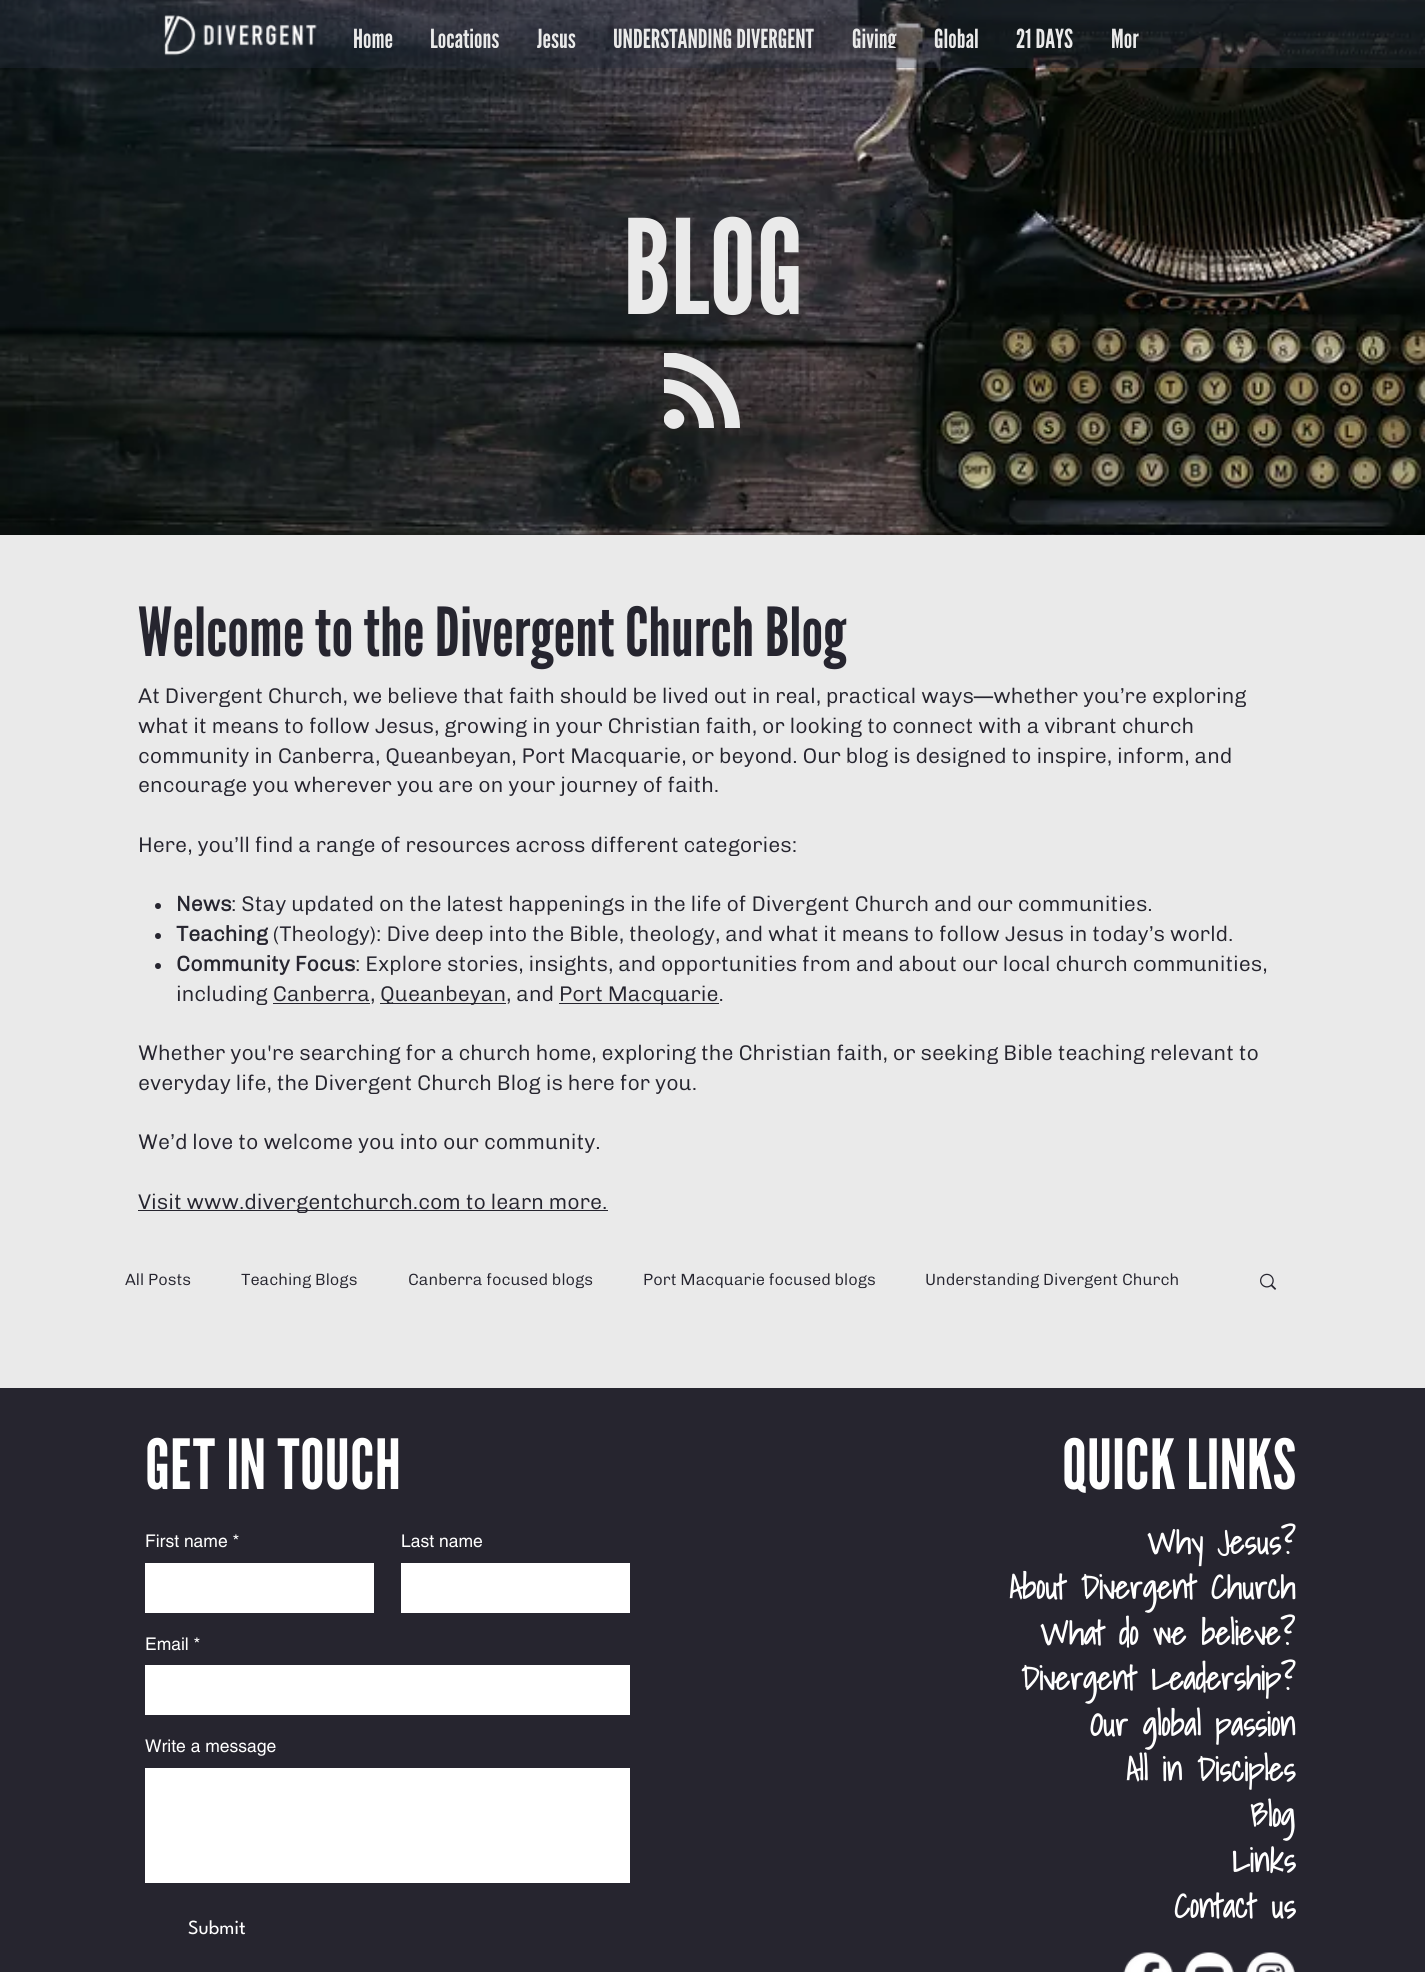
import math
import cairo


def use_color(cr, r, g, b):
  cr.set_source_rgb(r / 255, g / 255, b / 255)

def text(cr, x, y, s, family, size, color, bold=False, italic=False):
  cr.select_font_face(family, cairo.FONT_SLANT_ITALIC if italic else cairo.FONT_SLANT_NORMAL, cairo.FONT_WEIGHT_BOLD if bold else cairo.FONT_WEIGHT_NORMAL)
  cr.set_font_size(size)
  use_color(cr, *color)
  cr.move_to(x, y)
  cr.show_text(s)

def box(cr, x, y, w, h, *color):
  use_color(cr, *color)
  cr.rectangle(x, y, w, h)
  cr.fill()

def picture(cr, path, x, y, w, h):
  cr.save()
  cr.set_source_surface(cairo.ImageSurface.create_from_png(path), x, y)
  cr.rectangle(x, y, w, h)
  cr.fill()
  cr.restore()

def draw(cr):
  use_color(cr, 234, 234, 234)
  cr.paint()
  picture(cr, "img_02.png", 0, 0, 1425, 535)
  cr.set_source_rgba(0.145, 0.176, 0.235, 0.39)
  cr.rectangle(0, 0, 1425, 68)
  cr.fill()
  picture(cr, "img_01.png", 163, 15, 154, 41)
  cr.save()
  cr.rectangle(664, 353, 76, 76)
  cr.clip()
  use_color(cr, 234, 234, 234)
  cr.set_fill_rule(cairo.FILL_RULE_EVEN_ODD)
  cr.new_path()
  cr.move_to(664, 379)
  cr.curve_to(691, 379, 714, 401, 714, 428)
  cr.line_to(699, 428)
  cr.curve_to(699, 409, 683, 393, 664, 393)
  cr.close_path()
  cr.move_to(664, 352)
  cr.curve_to(705, 352, 740, 386, 740, 428)
  cr.line_to(725, 428)
  cr.curve_to(725, 394, 698, 367, 664, 367)
  cr.close_path()
  cr.move_to(681, 412)
  cr.curve_to(691, 421, 676, 435, 667, 426)
  cr.curve_to(657, 417, 672, 403, 681, 412)
  cr.close_path()
  cr.fill()
  cr.restore()
  use_color(cr, 38, 37, 47)
  cr.arc(158, 906, 3, 0, 2 * math.pi)
  cr.fill()
  cr.arc(158, 936, 3, 0, 2 * math.pi)
  cr.fill()
  cr.arc(158, 966, 3, 0, 2 * math.pi)
  cr.fill()
  box(cr, 273, 1003, 97, 1, 38, 37, 47)
  box(cr, 380, 1003, 126, 1, 38, 37, 47)
  box(cr, 559, 1003, 160, 1, 38, 37, 47)
  box(cr, 138, 1210, 470, 1, 38, 37, 47)
  picture(cr, "img_03.png", 1260, 1273, 17, 17)
  box(cr, 0, 1388, 1425, 584, 38, 37, 47)
  box(cr, 145, 1563, 229, 50, 255, 255, 255)
  box(cr, 401, 1563, 229, 50, 255, 255, 255)
  box(cr, 145, 1665, 485, 50, 255, 255, 255)
  box(cr, 145, 1768, 485, 115, 255, 255, 255)
  picture(cr, "img_04.png", 1123, 1952, 50, 20)
  picture(cr, "img_05.png", 1185, 1952, 49, 20)
  picture(cr, "img_06.png", 1246, 1952, 49, 20)
  cr.save()
  cr.rectangle(334, 21, 805, 27)
  cr.clip()
  text(cr, 353, 48, "Home", "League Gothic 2", 26.25, (234, 234, 234))
  text(cr, 430, 48, "Locations", "League Gothic 2", 26.25, (234, 234, 234))
  text(cr, 537, 48, "Jesus", "League Gothic 2", 26.25, (234, 234, 234))
  text(cr, 613, 48, "UNDERSTANDING DIVERGENT", "League Gothic 2", 26.25, (234, 234, 234))
  text(cr, 852, 48, "Giving", "League Gothic 2", 26.25, (234, 234, 234))
  text(cr, 934, 48, "Global", "League Gothic 2", 26.25, (234, 234, 234))
  text(cr, 1016, 48, "21 DAYS", "League Gothic 2", 26.25, (234, 234, 234))
  cr.restore()
  text(cr, 1111, 48, "Mor", "League Gothic 2", 26.25, (234, 234, 234))
  text(cr, 623, 314, "BLOG", "League Gothic", 131, (234, 234, 234))
  text(cr, 138, 656, "Welcome to the Divergent Church Blog", "League Gothic 2", 67.5, (38, 37, 47))
  text(cr, 138, 703, "At Divergent Church, we believe that faith should be lived out in real, practical ways—whether you’re exploring", "Chivo Light", 21.25, (38, 37, 47))
  text(cr, 138, 733, "what it means to follow Jesus, growing in your Christian faith, or looking to connect with a vibrant church", "Chivo Light", 21.25, (38, 37, 47))
  text(cr, 138, 763, "community in Canberra, Queanbeyan, Port Macquarie, or beyond. Our blog is designed to inspire, inform, and", "Chivo Light", 21.25, (38, 37, 47))
  text(cr, 138, 792, "encourage you wherever you are on your journey of faith.", "Chivo Light", 21.25, (38, 37, 47))
  text(cr, 138, 852, "Here, you’ll find a range of resources across different categories:", "Chivo Light", 21.25, (38, 37, 47))
  text(cr, 176, 911, "News", "Chivo", 21.25, (38, 37, 47), bold=True)
  text(cr, 231, 911, ": Stay updated on the latest happenings in the life of Divergent Church and our communities.", "Chivo Light", 21.25, (38, 37, 47))
  text(cr, 176, 941, "Teaching", "Chivo", 21.25, (38, 37, 47), bold=True)
  text(cr, 273, 941, "(Theology): Dive deep into the Bible, theology, and what it means to follow Jesus in today’s world.", "Chivo Light", 21.25, (38, 37, 47))
  text(cr, 176, 971, "Community Focus", "Chivo", 21.25, (38, 37, 47), bold=True)
  text(cr, 355, 971, ": Explore stories, insights, and opportunities from and about our local church communities,", "Chivo Light", 21.25, (38, 37, 47))
  text(cr, 176, 1001, "including Canberra,", "Chivo Light", 21.25, (38, 37, 47))
  text(cr, 380, 1001, "Queanbeyan, and", "Chivo Light", 21.25, (38, 37, 47))
  text(cr, 559, 1001, "Port Macquarie.", "Chivo Light", 21.25, (38, 37, 47))
  text(cr, 138, 1060, "Whether you're searching for a church home, exploring the Christian faith, or seeking Bible teaching relevant to", "Chivo Light", 21.25, (38, 37, 47))
  text(cr, 138, 1090, "everyday life, the Divergent Church Blog is here for you.", "Chivo Light", 21.25, (38, 37, 47))
  text(cr, 138, 1149, "We’d love to welcome you into our community.", "Chivo Light", 21.25, (38, 37, 47))
  text(cr, 138, 1209, "Visit www.divergentchurch.com to learn more.", "Chivo Light", 21.25, (38, 37, 47))
  text(cr, 125, 1285, "All Posts", "Chivo Light", 16.25, (38, 37, 47))
  text(cr, 241, 1285, "Teaching Blogs", "Chivo Light", 16.25, (38, 37, 47))
  text(cr, 408, 1285, "Canberra focused blogs", "Chivo Light", 16.25, (38, 37, 47))
  text(cr, 643, 1285, "Port Macquarie focused blogs", "Chivo Light", 16.25, (38, 37, 47))
  text(cr, 925, 1285, "Understanding Divergent Church", "Chivo Light", 16.25, (38, 37, 47))
  text(cr, 145, 1489, "GET IN TOUCH", "League Gothic", 69, (255, 255, 255))
  text(cr, 1062, 1489, "QUICK LINKS", "League Gothic", 69, (255, 255, 255))
  text(cr, 145, 1547, "First name *", "helvetica", 17.5, (255, 255, 255))
  text(cr, 401, 1547, "Last name", "helvetica", 17.5, (255, 255, 255))
  text(cr, 145, 1650, "Email *", "helvetica", 17.5, (255, 255, 255))
  text(cr, 145, 1752, "Write a message", "helvetica", 17.5, (255, 255, 255))
  text(cr, 188, 1934, "Submit", "League Spartan", 20, (255, 255, 255))
  text(cr, 1147, 1554, "Why Jesus?", "Shadows Into Light", 32.5, (255, 255, 255), bold=True)
  text(cr, 1009, 1599, "About Divergent Church", "Shadows Into Light", 32.5, (255, 255, 255), bold=True)
  text(cr, 1040, 1645, "What do we believe?", "Shadows Into Light", 32.5, (255, 255, 255), bold=True)
  text(cr, 1021, 1690, "Divergent Leadership?", "Shadows Into Light", 32.5, (255, 255, 255), bold=True)
  text(cr, 1090, 1736, "Our global passion", "Shadows Into Light", 32.5, (255, 255, 255), bold=True)
  text(cr, 1126, 1781, "All in Disciples", "Shadows Into Light", 32.5, (255, 255, 255), bold=True)
  text(cr, 1250, 1827, "Blog", "Shadows Into Light", 32.5, (255, 255, 255), bold=True)
  text(cr, 1232, 1872, "Links", "Shadows Into Light", 32.5, (255, 255, 255), bold=True)
  text(cr, 1174, 1918, "Contact us", "Shadows Into Light", 32.5, (255, 255, 255), bold=True)


surface = cairo.ImageSurface(cairo.FORMAT_RGB24, 1425, 1972)
cr = cairo.Context(surface)
options = cairo.FontOptions()
options.set_hint_metrics(cairo.HINT_METRICS_OFF)
options.set_hint_style(cairo.HINT_STYLE_NONE)
cr.set_font_options(options)
cr.set_miter_limit(4)
draw(cr)
surface.write_to_png("out.png")
